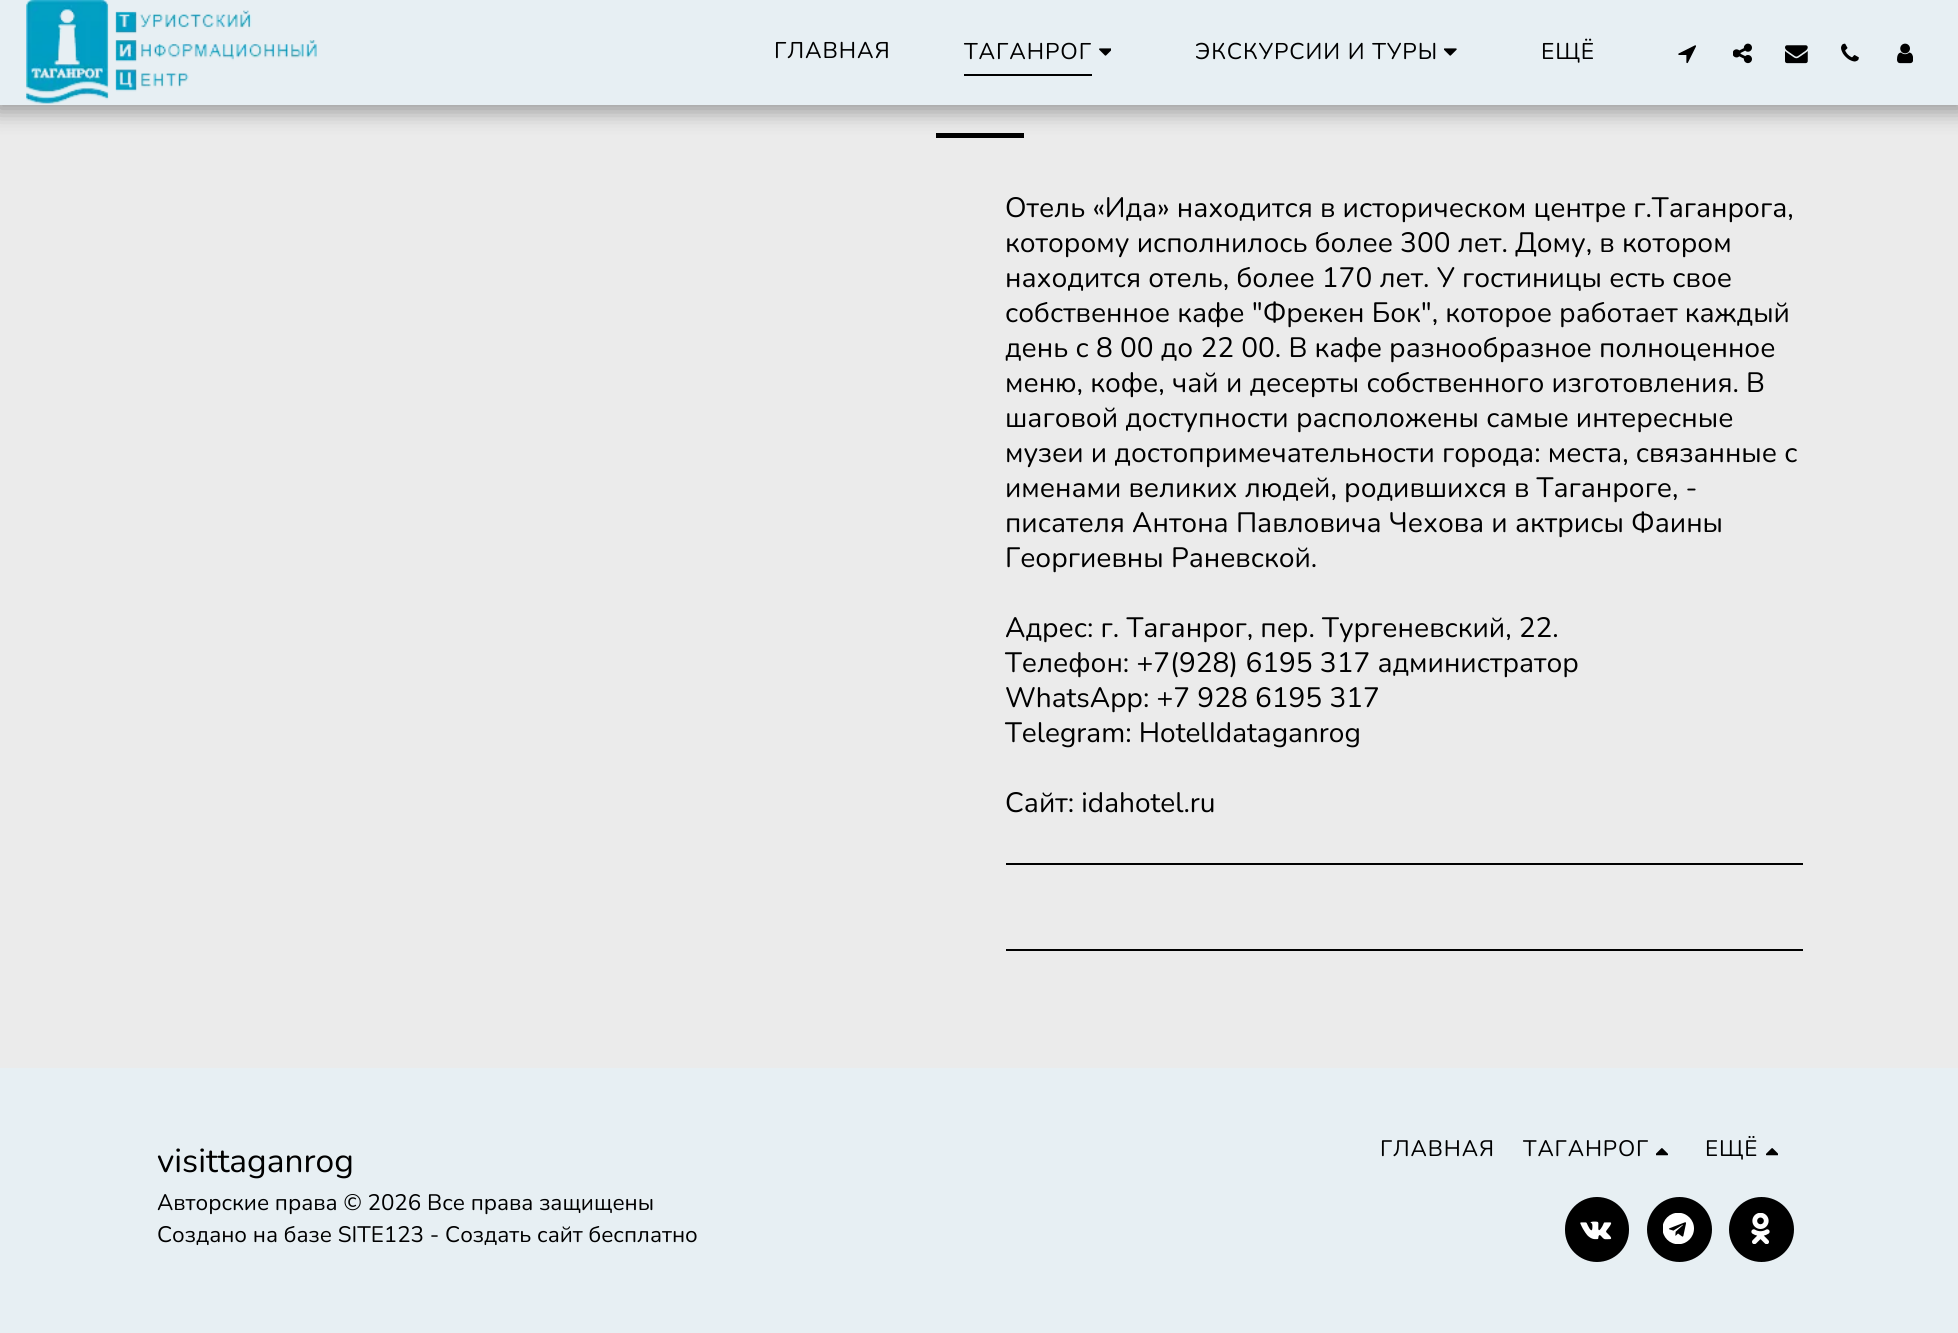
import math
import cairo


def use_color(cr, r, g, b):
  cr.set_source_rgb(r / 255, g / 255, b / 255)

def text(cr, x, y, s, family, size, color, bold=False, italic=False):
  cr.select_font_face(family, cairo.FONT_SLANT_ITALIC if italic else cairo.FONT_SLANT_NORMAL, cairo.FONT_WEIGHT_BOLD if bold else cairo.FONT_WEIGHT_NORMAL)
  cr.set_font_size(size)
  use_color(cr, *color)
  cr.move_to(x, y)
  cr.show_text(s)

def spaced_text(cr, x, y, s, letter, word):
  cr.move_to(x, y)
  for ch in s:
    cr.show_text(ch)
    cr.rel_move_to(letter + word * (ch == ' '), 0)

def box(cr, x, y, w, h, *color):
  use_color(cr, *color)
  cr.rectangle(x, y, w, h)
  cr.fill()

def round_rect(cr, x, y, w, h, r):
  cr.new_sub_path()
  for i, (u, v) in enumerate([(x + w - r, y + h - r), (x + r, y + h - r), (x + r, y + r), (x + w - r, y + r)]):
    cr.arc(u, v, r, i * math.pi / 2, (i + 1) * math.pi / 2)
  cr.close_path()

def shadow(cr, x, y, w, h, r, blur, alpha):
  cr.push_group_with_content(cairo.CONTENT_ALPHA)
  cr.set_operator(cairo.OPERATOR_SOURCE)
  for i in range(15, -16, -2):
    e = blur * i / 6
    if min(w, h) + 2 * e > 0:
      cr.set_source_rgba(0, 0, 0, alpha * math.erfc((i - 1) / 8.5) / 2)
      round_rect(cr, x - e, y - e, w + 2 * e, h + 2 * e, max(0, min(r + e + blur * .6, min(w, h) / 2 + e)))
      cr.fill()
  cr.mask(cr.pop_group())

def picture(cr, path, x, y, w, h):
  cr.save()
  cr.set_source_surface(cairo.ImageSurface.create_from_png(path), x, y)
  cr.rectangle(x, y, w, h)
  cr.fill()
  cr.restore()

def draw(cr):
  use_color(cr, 235, 235, 235)
  cr.paint()
  box(cr, 936, 133, 88, 5, 0, 0, 0)
  use_color(cr, 0, 0, 0)
  shadow(cr, -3, 0, 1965, 112, 0, 10.5, 0.35)
  box(cr, 0, 0, 1958, 105, 231, 239, 243)
  picture(cr, "img_01.png", 26, 0, 291, 104)
  box(cr, 964, 74, 128, 2, 0, 0, 0)
  picture(cr, "img_02.png", 1099, 48, 12, 8)
  picture(cr, "img_03.png", 1444, 48, 13, 8)
  picture(cr, "img_04.png", 1678, 45, 18, 19)
  picture(cr, "img_05.png", 1733, 43, 19, 21)
  picture(cr, "img_06.png", 1785, 45, 23, 19)
  picture(cr, "img_07.png", 1841, 43, 18, 19)
  picture(cr, "img_08.png", 1897, 43, 16, 21)
  box(cr, 1006, 863, 797, 2, 0, 0, 0)
  box(cr, 1006, 949, 797, 2, 0, 0, 0)
  box(cr, 0, 1068, 1958, 265, 231, 239, 243)
  picture(cr, "img_09.png", 1656, 1148, 12, 8)
  picture(cr, "img_10.png", 1766, 1148, 12, 8)
  use_color(cr, 0, 0, 0)
  round_rect(cr, 1566, 1198, 62, 63, 31)
  cr.fill_preserve()
  cr.stroke()
  picture(cr, "img_11.png", 1580, 1221, 32, 19)
  cr.arc(1679.5, 1229.5, 31.5, 0, 2 * math.pi)
  cr.fill_preserve()
  cr.stroke()
  picture(cr, "img_12.png", 1663, 1213, 31, 31)
  cr.arc(1761.5, 1229.5, 31.5, 0, 2 * math.pi)
  cr.fill_preserve()
  cr.stroke()
  picture(cr, "img_13.png", 1751, 1213, 19, 31)
  cr.select_font_face("Nunito")
  cr.set_font_size(22.75)
  spaced_text(cr, 774, 58, "ГЛАВНАЯ", 0.9, 0)
  spaced_text(cr, 964, 59, "ТАГАНРОГ", 0.9, 0)
  spaced_text(cr, 1195, 59, "ЭКСКУРСИИ И ТУРЫ", 0.9, 0)
  spaced_text(cr, 1541, 59, "ЕЩЁ", 0.9, 0)
  text(cr, 1005, 217, "Отель «Ида» находится в историческом центре г.Таганрога,", "Nunito", 28, (0, 0, 0))
  text(cr, 1005, 252, "которому исполнилось более 300 лет. Дому, в котором", "Nunito", 28, (0, 0, 0))
  text(cr, 1005, 287, "находится отель, более 170 лет. У гостиницы есть свое", "Nunito", 28, (0, 0, 0))
  text(cr, 1005, 322, "собственное кафе \"Фрекен Бок\", которое работает каждый", "Nunito", 28, (0, 0, 0))
  text(cr, 1005, 357, "день с 8 00 до 22 00. В кафе разнообразное полноценное", "Nunito", 28, (0, 0, 0))
  text(cr, 1005, 392, "меню, кофе, чай и десерты собственного изготовления. В", "Nunito", 28, (0, 0, 0))
  text(cr, 1005, 427, "шаговой доступности расположены самые интересные", "Nunito", 28, (0, 0, 0))
  text(cr, 1005, 462, "музеи и достопримечательности города: места, связанные с", "Nunito", 28, (0, 0, 0))
  text(cr, 1005, 497, "именами великих людей, родившихся в Таганроге, -", "Nunito", 28, (0, 0, 0))
  text(cr, 1005, 532, "писателя Антона Павловича Чехова и актрисы Фаины", "Nunito", 28, (0, 0, 0))
  text(cr, 1005, 567, "Георгиевны Раневской.", "Nunito", 28, (0, 0, 0))
  text(cr, 1005, 637, "Адрес: г. Таганрог, пер. Тургеневский, 22.", "Nunito", 28, (0, 0, 0))
  text(cr, 1005, 672, "Телефон: +7(928) 6195 317 администратор", "Nunito", 28, (0, 0, 0))
  text(cr, 1005, 707, "WhatsApp: +7 928 6195 317", "Nunito", 28, (0, 0, 0))
  text(cr, 1005, 742, "Telegram: HotelIdataganrog", "Nunito", 28, (0, 0, 0))
  text(cr, 1005, 812, "Сайт: idahotel.ru", "Nunito", 28, (0, 0, 0))
  text(cr, 157, 1172, "visittaganrog", "Nunito", 33.5, (0, 0, 0))
  text(cr, 157, 1210, "Авторские права © 2026 Все права защищены", "Nunito", 22.4, (0, 0, 0))
  text(cr, 157, 1242, "Создано на базе SITE123 - Создать сайт бесплатно", "Nunito", 22.4, (0, 0, 0))
  spaced_text(cr, 1380, 1156, "ГЛАВНАЯ", 0.9, 0)
  spaced_text(cr, 1523, 1156, "ТАГАНРОГ", 0.9, 0)
  spaced_text(cr, 1705, 1156, "ЕЩЁ", 0.9, 0)


surface = cairo.ImageSurface(cairo.FORMAT_RGB24, 1958, 1333)
cr = cairo.Context(surface)
options = cairo.FontOptions()
options.set_hint_metrics(cairo.HINT_METRICS_OFF)
options.set_hint_style(cairo.HINT_STYLE_NONE)
cr.set_font_options(options)
cr.set_miter_limit(4)
draw(cr)
surface.write_to_png("out.png")
